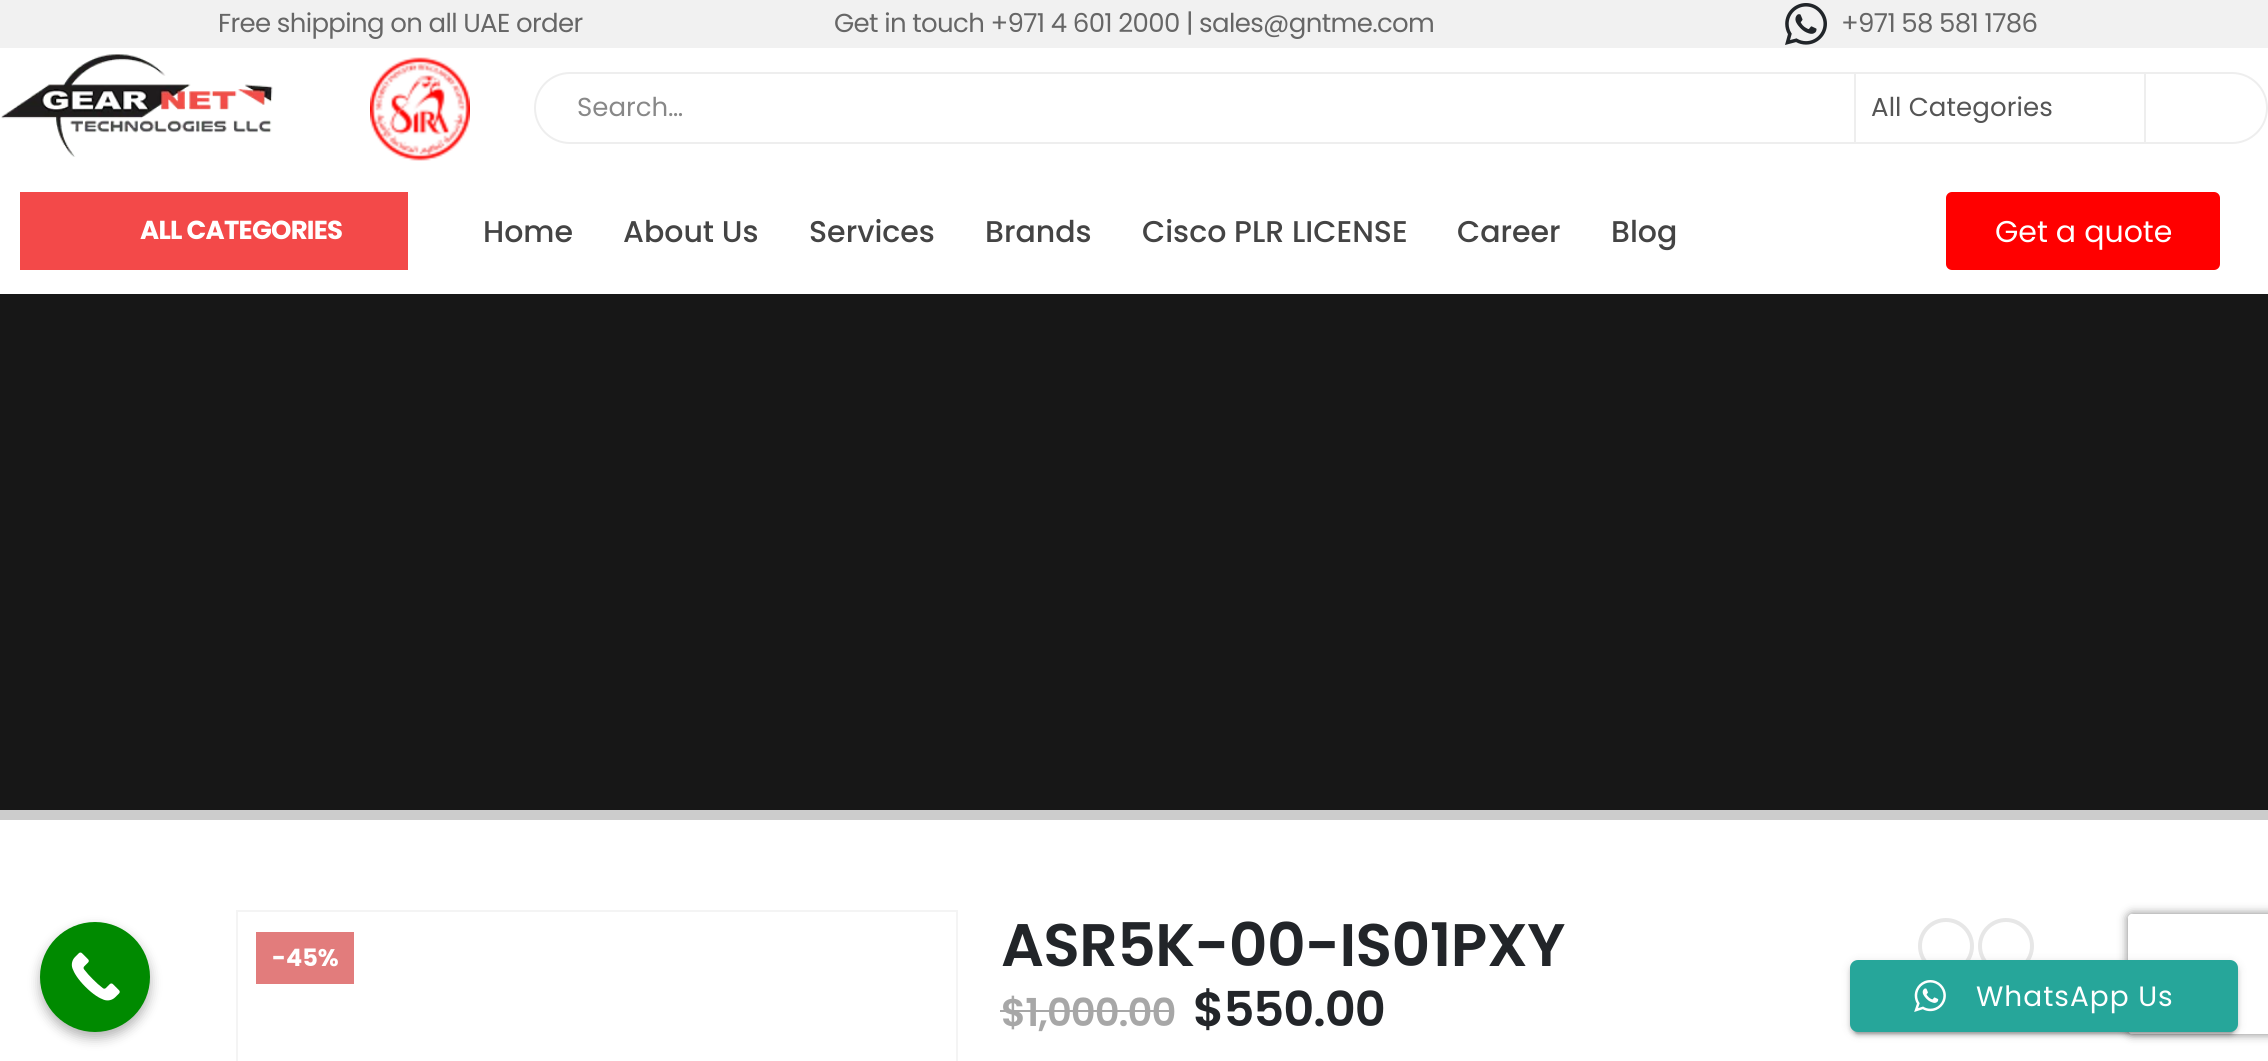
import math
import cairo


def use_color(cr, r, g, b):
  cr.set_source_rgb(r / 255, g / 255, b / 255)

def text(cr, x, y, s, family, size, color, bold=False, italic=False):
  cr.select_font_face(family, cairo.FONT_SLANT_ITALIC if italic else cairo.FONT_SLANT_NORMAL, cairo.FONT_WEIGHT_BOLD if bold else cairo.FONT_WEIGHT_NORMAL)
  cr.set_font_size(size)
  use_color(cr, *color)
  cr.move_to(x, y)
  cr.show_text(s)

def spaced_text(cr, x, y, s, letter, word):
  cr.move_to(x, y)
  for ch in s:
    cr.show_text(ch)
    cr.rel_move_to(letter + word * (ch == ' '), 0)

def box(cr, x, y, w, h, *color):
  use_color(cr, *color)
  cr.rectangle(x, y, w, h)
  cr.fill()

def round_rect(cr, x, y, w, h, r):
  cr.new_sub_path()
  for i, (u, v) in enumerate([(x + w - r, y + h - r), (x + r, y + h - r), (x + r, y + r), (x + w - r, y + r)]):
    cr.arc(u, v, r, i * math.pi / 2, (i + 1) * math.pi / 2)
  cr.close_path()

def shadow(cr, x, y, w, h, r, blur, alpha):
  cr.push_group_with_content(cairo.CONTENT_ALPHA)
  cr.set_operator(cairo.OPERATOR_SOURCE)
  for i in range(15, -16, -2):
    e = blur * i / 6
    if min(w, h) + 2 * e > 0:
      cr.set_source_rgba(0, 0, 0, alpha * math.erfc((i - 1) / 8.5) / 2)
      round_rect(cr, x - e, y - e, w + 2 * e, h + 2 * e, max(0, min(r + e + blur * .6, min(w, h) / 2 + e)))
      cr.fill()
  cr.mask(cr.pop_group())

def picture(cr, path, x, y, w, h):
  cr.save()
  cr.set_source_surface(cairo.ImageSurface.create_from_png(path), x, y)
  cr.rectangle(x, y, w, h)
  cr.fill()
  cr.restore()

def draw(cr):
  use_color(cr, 255, 255, 255)
  cr.paint()
  use_color(cr, 0, 0, 0)
  shadow(cr, 40, 928, 110, 110, 55, 6, 0.3)
  use_color(cr, 0, 138, 0)
  cr.arc(95, 977, 55, 0, 2 * math.pi)
  cr.fill()
  picture(cr, "img_01.png", 71, 952, 49, 49)
  box(cr, 0, 0, 2268, 48, 241, 241, 241)
  picture(cr, "img_02.png", 1785, 3, 42, 42)
  picture(cr, "img_03.png", 1, 54, 272, 103)
  picture(cr, "img_04.png", 370, 57, 100, 104)
  round_rect(cr, 535, 73, 1732, 70, 35)
  use_color(cr, 238, 238, 238)
  cr.stroke()
  box(cr, 2144, 74, 2, 68, 238, 238, 238)
  box(cr, 1854, 74, 2, 68, 238, 238, 238)
  box(cr, 20, 192, 388, 78, 243, 73, 73)
  use_color(cr, 255, 0, 0)
  round_rect(cr, 1946, 192, 274, 78, 6)
  cr.fill()
  box(cr, 0, 294, 2268, 516, 23, 23, 23)
  box(cr, 0, 810, 2268, 10, 204, 204, 204)
  cr.rectangle(237, 911, 720, 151)
  use_color(cr, 244, 244, 244)
  cr.stroke()
  box(cr, 256, 932, 98, 52, 226, 124, 124)
  cr.arc(1946, 946, 26, 0, 2 * math.pi)
  use_color(cr, 231, 231, 231)
  cr.set_line_width(4)
  cr.stroke()
  cr.arc(2006, 946, 26, 0, 2 * math.pi)
  cr.stroke()
  box(cr, 1000, 1010, 174, 2, 167, 167, 167)
  cr.save()
  cr.set_fill_rule(cairo.FILL_RULE_EVEN_ODD)
  cr.new_path()
  cr.move_to(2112, 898)
  cr.line_to(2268, 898)
  cr.line_to(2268, 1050)
  cr.line_to(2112, 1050)
  cr.close_path()
  cr.move_to(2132, 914)
  cr.line_to(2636, 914)
  cr.curve_to(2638, 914, 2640, 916, 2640, 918)
  cr.line_to(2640, 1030)
  cr.curve_to(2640, 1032, 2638, 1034, 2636, 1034)
  cr.line_to(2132, 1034)
  cr.curve_to(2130, 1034, 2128, 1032, 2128, 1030)
  cr.line_to(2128, 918)
  cr.curve_to(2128, 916, 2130, 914, 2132, 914)
  cr.close_path()
  cr.clip()
  use_color(cr, 128, 128, 128)
  shadow(cr, 2128, 914, 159, 120, 4, 5, 1)
  cr.restore()
  use_color(cr, 0, 0, 0)
  shadow(cr, 1854, 970, 380, 64, 4, 1, 0.2)
  shadow(cr, 1850, 962, 388, 72, 8, 5, 0.12)
  shadow(cr, 1850, 964, 388, 72, 8, 2, 0.14)
  use_color(cr, 38, 166, 154)
  round_rect(cr, 1850, 960, 388, 72, 8)
  cr.fill()
  picture(cr, "img_05.png", 1914, 980, 32, 32)
  cr.select_font_face("Poppins")
  cr.set_font_size(26)
  use_color(cr, 102, 102, 102)
  spaced_text(cr, 218, 32, "Free shipping on all UAE order", -0.65, 0)
  spaced_text(cr, 834, 32, "Get in touch +971 4 601 2000 | sales@gntme.com", -0.65, 0)
  spaced_text(cr, 1841, 32, "+971 58 581 1786", -0.65, 0)
  text(cr, 577, 116, "Search…", "Poppins", 26, (136, 136, 136))
  use_color(cr, 85, 85, 85)
  spaced_text(cr, 1871, 116, "All Categories", 0.1, 0)
  cr.select_font_face("Poppins", cairo.FONT_SLANT_NORMAL, cairo.FONT_WEIGHT_BOLD)
  use_color(cr, 255, 255, 255)
  spaced_text(cr, 140, 239, "ALL CATEGORIES", -0.75, 0)
  text(cr, 483, 242, "Home", "Poppins Medium", 30, (68, 68, 68))
  text(cr, 623, 242, "About Us", "Poppins Medium", 30, (68, 68, 68))
  text(cr, 809, 242, "Services", "Poppins Medium", 30, (68, 68, 68))
  text(cr, 985, 242, "Brands", "Poppins Medium", 30, (68, 68, 68))
  text(cr, 1142, 242, "Cisco PLR LICENSE", "Poppins Medium", 30, (68, 68, 68))
  text(cr, 1457, 242, "Career", "Poppins Medium", 30, (68, 68, 68))
  text(cr, 1611, 242, "Blog", "Poppins Medium", 30, (68, 68, 68))
  text(cr, 1995, 242, "Get a quote", "Poppins", 30, (255, 255, 255))
  text(cr, 272, 966, "-45%", "Poppins", 24, (255, 255, 255), bold=True)
  cr.select_font_face("Poppins SemiBold")
  cr.set_font_size(60)
  use_color(cr, 34, 37, 41)
  spaced_text(cr, 1001, 966, "ASR5K-00-IS01PXY", -0.6, 0)
  cr.set_font_size(38.5)
  use_color(cr, 167, 167, 167)
  spaced_text(cr, 1001, 1026, "$1,000.00", -1, 0)
  cr.set_font_size(48)
  use_color(cr, 34, 37, 41)
  spaced_text(cr, 1193, 1026, "$550.00", -1, 0)
  cr.select_font_face("Poppins")
  cr.set_font_size(28)
  use_color(cr, 255, 255, 255)
  spaced_text(cr, 1976, 1006, "WhatsApp Us", 1, 0)


surface = cairo.ImageSurface(cairo.FORMAT_RGB24, 2268, 1061)
cr = cairo.Context(surface)
options = cairo.FontOptions()
options.set_hint_metrics(cairo.HINT_METRICS_OFF)
options.set_hint_style(cairo.HINT_STYLE_NONE)
cr.set_font_options(options)
cr.set_miter_limit(4)
draw(cr)
surface.write_to_png("out.png")
